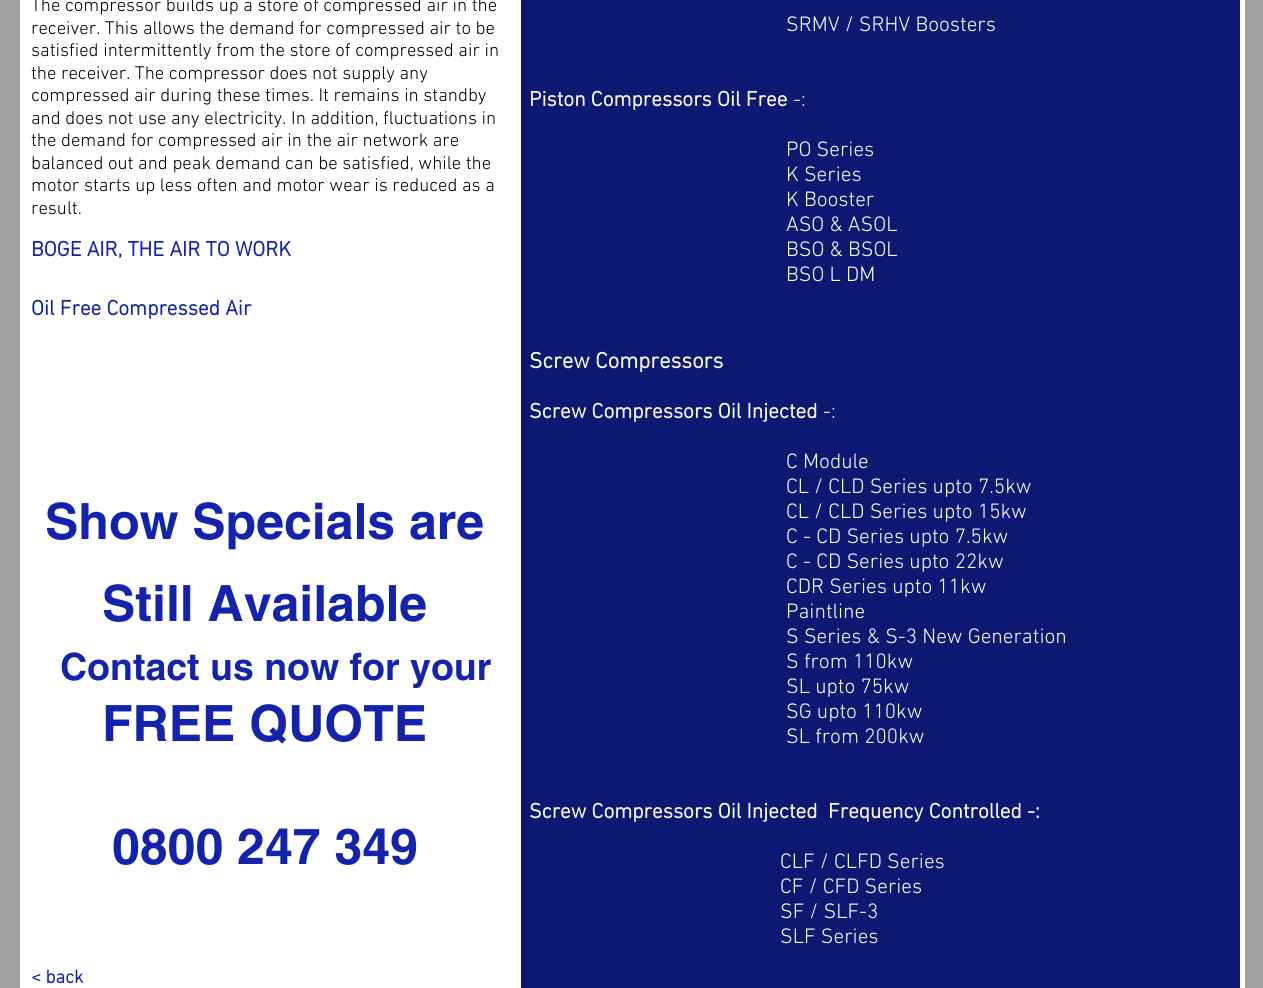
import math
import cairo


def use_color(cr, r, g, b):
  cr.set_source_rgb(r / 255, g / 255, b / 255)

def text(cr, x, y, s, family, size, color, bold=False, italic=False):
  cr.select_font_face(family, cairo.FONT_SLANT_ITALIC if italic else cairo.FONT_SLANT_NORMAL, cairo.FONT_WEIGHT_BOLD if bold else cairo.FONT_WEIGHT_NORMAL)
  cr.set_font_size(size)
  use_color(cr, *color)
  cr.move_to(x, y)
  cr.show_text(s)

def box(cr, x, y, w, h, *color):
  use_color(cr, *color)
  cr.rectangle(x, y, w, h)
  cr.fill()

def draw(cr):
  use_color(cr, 160, 160, 159)
  cr.paint()
  box(cr, 20, 0, 1225, 988, 255, 255, 255)
  box(cr, 521, 0, 719, 988, 13, 24, 115)
  text(cr, 31, 11, "The compressor builds up a store of compressed air in the", "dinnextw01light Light", 18.75, (0, 0, 0))
  text(cr, 31, 34, "receiver. This allows the demand for compressed air to be", "dinnextw01light Light", 18.75, (0, 0, 0))
  text(cr, 31, 56, "satisfied intermittently from the store of compressed air in", "dinnextw01light Light", 18.75, (0, 0, 0))
  text(cr, 31, 79, "the receiver. The compressor does not supply any", "dinnextw01light Light", 18.75, (0, 0, 0))
  text(cr, 31, 101, "compressed air during these times. It remains in standby", "dinnextw01light Light", 18.75, (0, 0, 0))
  text(cr, 31, 124, "and does not use any electricity. In addition, fluctuations in", "dinnextw01light Light", 18.75, (0, 0, 0))
  text(cr, 31, 146, "the demand for compressed air in the air network are", "dinnextw01light Light", 18.75, (0, 0, 0))
  text(cr, 31, 169, "balanced out and peak demand can be satisfied, while the", "dinnextw01light Light", 18.75, (0, 0, 0))
  text(cr, 31, 191, "motor starts up less often and motor wear is reduced as a", "dinnextw01light Light", 18.75, (0, 0, 0))
  text(cr, 31, 214, "result.", "dinnextw01light Light", 18.75, (0, 0, 0))
  text(cr, 786, 31, "SRMV / SRHV Boosters", "dinnextw01light Light", 21.25, (255, 255, 255))
  text(cr, 529, 106, "Piston Compressors Oil Free", "dinnextw01light", 21.25, (255, 255, 255), bold=True)
  text(cr, 793, 106, "-:", "dinnextw01light Light", 21.25, (255, 255, 255))
  text(cr, 786, 156, "PO Series", "dinnextw01light Light", 21.25, (255, 255, 255))
  text(cr, 786, 181, "K Series", "dinnextw01light Light", 21.25, (255, 255, 255))
  text(cr, 786, 206, "K Booster", "dinnextw01light Light", 21.25, (255, 255, 255))
  text(cr, 786, 231, "ASO & ASOL", "dinnextw01light Light", 21.25, (255, 255, 255))
  text(cr, 786, 256, "BSO & BSOL", "dinnextw01light Light", 21.25, (255, 255, 255))
  text(cr, 786, 281, "BSO L DM", "dinnextw01light Light", 21.25, (255, 255, 255))
  text(cr, 529, 368, "Screw Compressors", "dinnextw01light", 22.5, (255, 255, 255), bold=True)
  text(cr, 529, 418, "Screw Compressors Oil Injected", "dinnextw01light", 21.25, (255, 255, 255), bold=True)
  text(cr, 823, 418, "-:", "dinnextw01light Light", 21.25, (255, 255, 255))
  text(cr, 786, 468, "C Module", "dinnextw01light Light", 21.25, (255, 255, 255))
  text(cr, 786, 493, "CL / CLD Series upto 7.5kw", "dinnextw01light Light", 21.25, (255, 255, 255))
  text(cr, 786, 518, "CL / CLD Series upto 15kw", "dinnextw01light Light", 21.25, (255, 255, 255))
  text(cr, 786, 543, "C - CD Series upto 7.5kw", "dinnextw01light Light", 21.25, (255, 255, 255))
  text(cr, 786, 568, "C - CD Series upto 22kw", "dinnextw01light Light", 21.25, (255, 255, 255))
  text(cr, 786, 593, "CDR Series upto 11kw", "dinnextw01light Light", 21.25, (255, 255, 255))
  text(cr, 786, 618, "Paintline", "dinnextw01light Light", 21.25, (255, 255, 255))
  text(cr, 786, 643, "S Series & S-3 New Generation", "dinnextw01light Light", 21.25, (255, 255, 255))
  text(cr, 786, 668, "S from 110kw", "dinnextw01light Light", 21.25, (255, 255, 255))
  text(cr, 786, 693, "SL upto 75kw", "dinnextw01light Light", 21.25, (255, 255, 255))
  text(cr, 786, 718, "SG upto 110kw", "dinnextw01light Light", 21.25, (255, 255, 255))
  text(cr, 786, 743, "SL from 200kw", "dinnextw01light Light", 21.25, (255, 255, 255))
  text(cr, 529, 818, "Screw Compressors Oil Injected  Frequency Controlled -:", "dinnextw01light", 21.25, (255, 255, 255), bold=True)
  text(cr, 780, 868, "CLF / CLFD Series", "dinnextw01light Light", 21.25, (255, 255, 255))
  text(cr, 780, 893, "CF / CFD Series", "dinnextw01light Light", 21.25, (255, 255, 255))
  text(cr, 780, 918, "SF / SLF-3", "dinnextw01light Light", 21.25, (255, 255, 255))
  text(cr, 780, 943, "SLF Series", "dinnextw01light Light", 21.25, (255, 255, 255))
  text(cr, 31, 256, "BOGE AIR, THE AIR TO WORK", "dinnextw01light", 21.25, (20, 35, 173), bold=True)
  text(cr, 31, 315, "Oil Free Compressed Air", "dinnextw01light", 21.25, (20, 35, 173), bold=True)
  text(cr, 45, 539, "Show Specials are", "helvetica", 50, (20, 35, 173), bold=True)
  text(cr, 102, 621, "Still Available", "helvetica", 50, (20, 35, 173), bold=True)
  text(cr, 60, 680, "Contact us now for your", "helvetica", 37.5, (20, 35, 173), bold=True)
  text(cr, 102, 741, "FREE QUOTE", "helvetica", 50, (20, 35, 173), bold=True)
  text(cr, 112, 864, "0800 247 349", "helvetica", 50, (20, 35, 173), bold=True)
  text(cr, 31, 983, "< back", "dinnextw01light", 18.75, (20, 35, 173), bold=True)


surface = cairo.ImageSurface(cairo.FORMAT_RGB24, 1263, 988)
cr = cairo.Context(surface)
options = cairo.FontOptions()
options.set_hint_metrics(cairo.HINT_METRICS_OFF)
options.set_hint_style(cairo.HINT_STYLE_NONE)
cr.set_font_options(options)
cr.set_miter_limit(4)
draw(cr)
surface.write_to_png("out.png")
